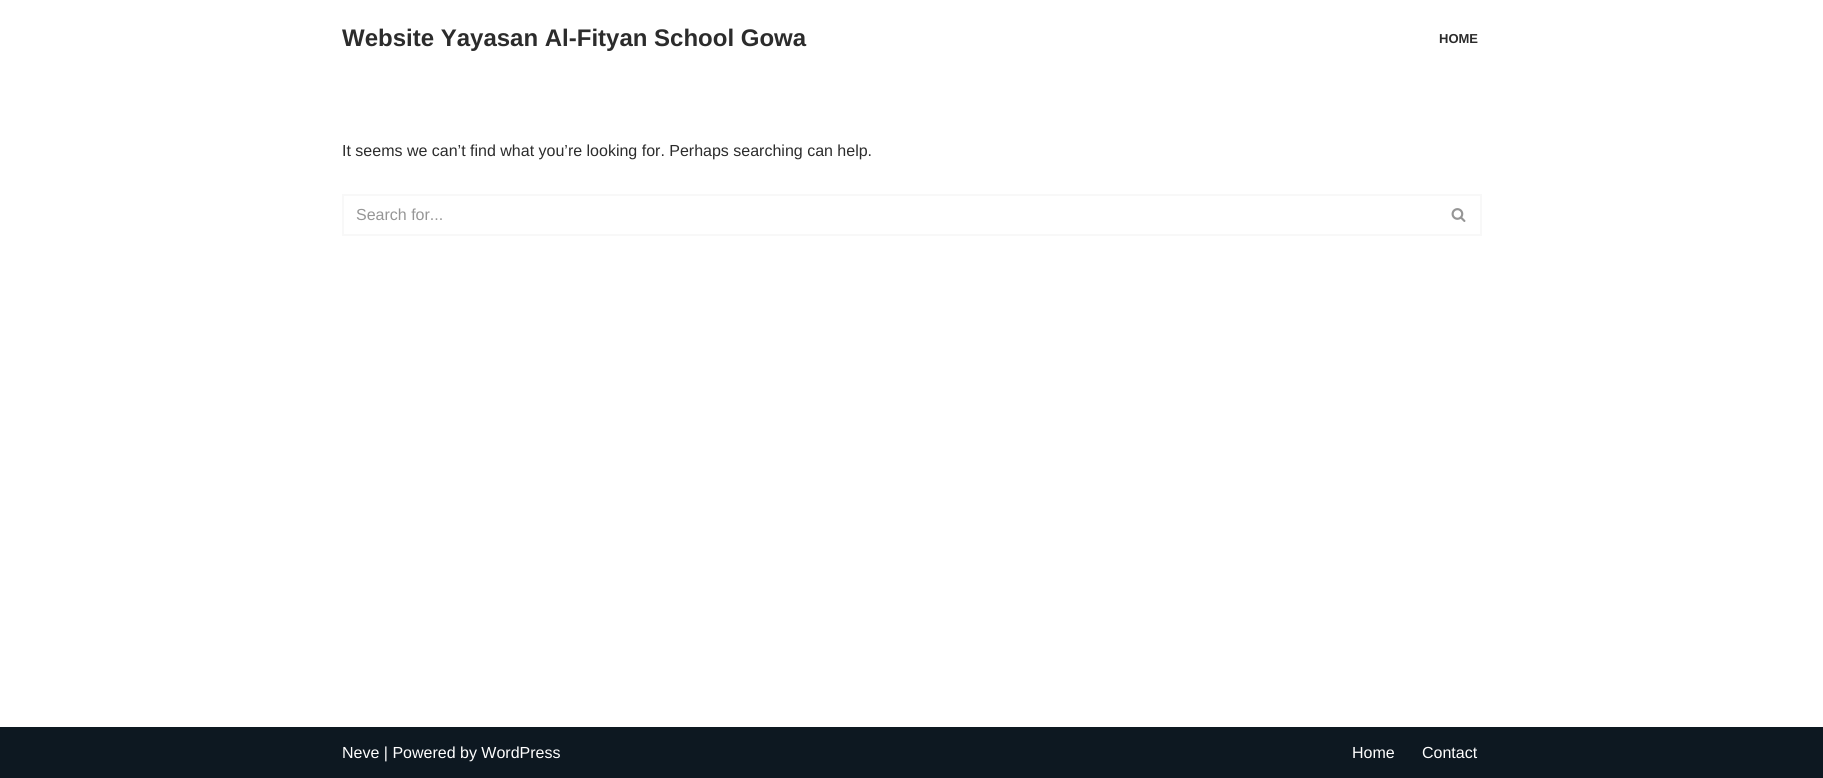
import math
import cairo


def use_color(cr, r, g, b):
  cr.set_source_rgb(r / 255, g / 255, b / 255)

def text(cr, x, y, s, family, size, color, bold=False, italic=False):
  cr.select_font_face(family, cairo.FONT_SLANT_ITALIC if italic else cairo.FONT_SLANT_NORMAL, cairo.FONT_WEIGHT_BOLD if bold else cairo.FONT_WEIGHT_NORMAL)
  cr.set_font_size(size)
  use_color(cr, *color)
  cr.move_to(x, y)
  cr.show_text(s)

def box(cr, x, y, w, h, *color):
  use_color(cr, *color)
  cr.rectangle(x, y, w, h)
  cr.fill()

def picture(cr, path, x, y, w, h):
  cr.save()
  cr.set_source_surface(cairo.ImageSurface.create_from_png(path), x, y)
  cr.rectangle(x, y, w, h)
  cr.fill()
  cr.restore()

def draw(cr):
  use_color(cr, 255, 255, 255)
  cr.paint()
  box(cr, 342, 194, 1140, 2, 248, 248, 248)
  box(cr, 342, 234, 1095, 2, 248, 248, 248)
  box(cr, 342, 194, 2, 42, 248, 248, 248)
  box(cr, 1480, 194, 2, 42, 248, 248, 248)
  box(cr, 1437, 234, 45, 2, 248, 248, 248)
  picture(cr, "img_01.png", 1451, 208, 15, 14)
  box(cr, 0, 727, 1823, 51, 13, 24, 33)
  text(cr, 342, 46, "Website Yayasan Al-Fityan School Gowa", "Liberation Sans", 24, (44, 44, 44), bold=True)
  text(cr, 1439, 43, "HOME", "Liberation Sans", 13, (44, 44, 44), bold=True)
  text(cr, 342, 156, "It seems we can’t find what you’re looking for. Perhaps searching can help.", "Liberation Sans", 16, (44, 44, 44))
  text(cr, 356, 220, "Search for...", "Liberation Sans", 16, (150, 150, 150))
  text(cr, 342, 758, "Neve | Powered by WordPress", "Liberation Sans", 16, (255, 255, 255))
  text(cr, 1352, 758, "Home", "Liberation Sans", 16, (255, 255, 255))
  text(cr, 1422, 758, "Contact", "Liberation Sans", 16, (255, 255, 255))


surface = cairo.ImageSurface(cairo.FORMAT_RGB24, 1823, 778)
cr = cairo.Context(surface)
options = cairo.FontOptions()
options.set_hint_metrics(cairo.HINT_METRICS_OFF)
options.set_hint_style(cairo.HINT_STYLE_NONE)
cr.set_font_options(options)
cr.set_miter_limit(4)
draw(cr)
surface.write_to_png("out.png")
